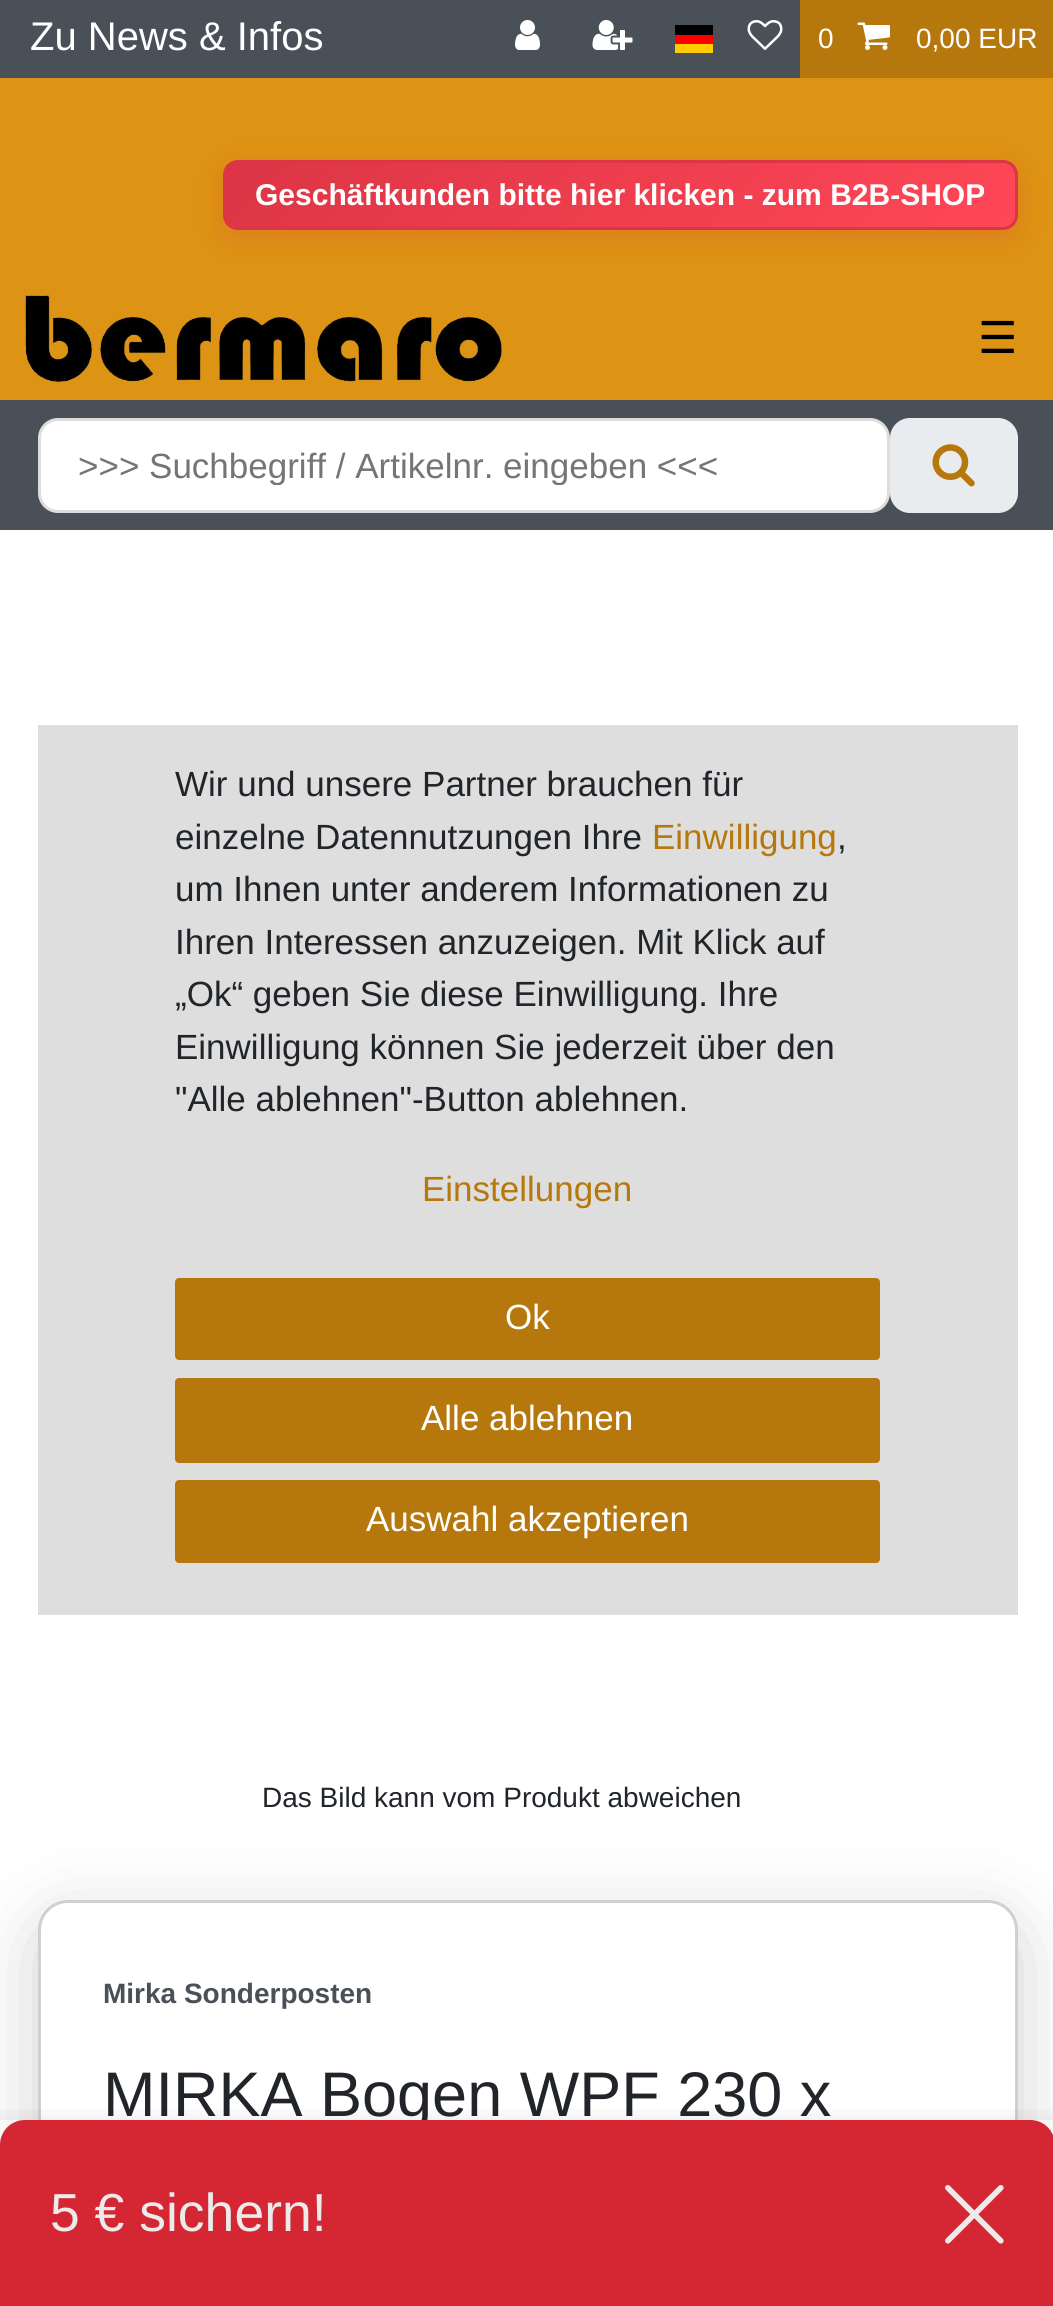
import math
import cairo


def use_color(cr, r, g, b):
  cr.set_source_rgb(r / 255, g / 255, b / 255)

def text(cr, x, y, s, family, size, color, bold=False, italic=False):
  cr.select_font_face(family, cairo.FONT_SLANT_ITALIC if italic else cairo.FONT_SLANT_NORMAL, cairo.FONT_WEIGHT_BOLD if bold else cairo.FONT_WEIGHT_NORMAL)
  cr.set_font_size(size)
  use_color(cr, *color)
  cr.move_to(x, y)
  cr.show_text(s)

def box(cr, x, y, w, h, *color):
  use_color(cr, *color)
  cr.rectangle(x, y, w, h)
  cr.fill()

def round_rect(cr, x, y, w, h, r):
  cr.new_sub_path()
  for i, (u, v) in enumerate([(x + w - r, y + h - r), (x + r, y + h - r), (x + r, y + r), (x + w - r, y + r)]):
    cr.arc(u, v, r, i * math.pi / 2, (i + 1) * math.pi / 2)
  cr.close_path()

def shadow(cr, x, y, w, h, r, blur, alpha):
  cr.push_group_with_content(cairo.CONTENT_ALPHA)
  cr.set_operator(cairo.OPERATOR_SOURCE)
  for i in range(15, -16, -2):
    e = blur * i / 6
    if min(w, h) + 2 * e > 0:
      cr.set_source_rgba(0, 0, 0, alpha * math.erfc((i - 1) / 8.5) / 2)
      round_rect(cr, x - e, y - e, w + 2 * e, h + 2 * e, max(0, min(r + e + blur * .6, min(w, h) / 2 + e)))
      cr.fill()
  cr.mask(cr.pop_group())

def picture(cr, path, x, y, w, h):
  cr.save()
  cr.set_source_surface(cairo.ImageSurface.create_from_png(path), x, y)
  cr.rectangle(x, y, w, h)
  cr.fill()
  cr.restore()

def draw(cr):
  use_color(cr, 255, 255, 255)
  cr.paint()
  box(cr, 0, 0, 800, 78, 73, 80, 87)
  picture(cr, "img_01.png", 515, 20, 25, 30)
  picture(cr, "img_02.png", 592, 20, 41, 30)
  box(cr, 675, 44, 38, 9, 255, 204, 0)
  box(cr, 675, 25, 38, 10, 0, 0, 0)
  box(cr, 675, 35, 38, 9, 255, 0, 0)
  picture(cr, "img_03.png", 747, 20, 36, 30)
  box(cr, 800, 0, 253, 78, 182, 120, 12)
  picture(cr, "img_04.png", 857, 22, 33, 28)
  box(cr, 0, 78, 1053, 322, 221, 147, 19)
  use_color(cr, 220, 53, 69)
  shadow(cr, 223, 168, 795, 70, 15, 12.5, 0.25)
  cr.save()
  round_rect(cr, 223, 160, 795, 70, 15)
  cr.clip()
  gradient = cairo.LinearGradient(406, -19, 834, 409)
  gradient.add_color_stop_rgba(0, 0.863, 0.208, 0.271, 1)
  gradient.add_color_stop_rgba(1, 1, 0.278, 0.341, 1)
  cr.set_source(gradient)
  cr.rectangle(225, 163, 790, 65)
  cr.fill()
  cr.restore()
  round_rect(cr, 224.5, 161.5, 792, 67, 13.5)
  use_color(cr, 220, 53, 69)
  cr.set_line_width(3)
  cr.stroke()
  picture(cr, "img_05.png", 25, 295, 477, 87)
  box(cr, 0, 400, 1053, 130, 73, 80, 87)
  use_color(cr, 255, 255, 255)
  round_rect(cr, 39.5, 419.5, 849, 92, 18.5)
  cr.fill_preserve()
  use_color(cr, 221, 221, 221)
  cr.stroke()
  use_color(cr, 233, 236, 239)
  round_rect(cr, 890, 418, 128, 95, 20)
  cr.fill()
  picture(cr, "img_06.png", 932, 444, 43, 43)
  box(cr, 38, 725, 980, 890, 222, 222, 222)
  use_color(cr, 182, 120, 12)
  round_rect(cr, 176.5, 1279.5, 702, 79, 2.5)
  cr.fill_preserve()
  cr.stroke()
  round_rect(cr, 176.5, 1379.5, 702, 82, 2.5)
  cr.fill_preserve()
  cr.stroke()
  round_rect(cr, 176.5, 1481.5, 702, 80, 2.5)
  cr.fill_preserve()
  cr.stroke()
  use_color(cr, 0, 0, 0)
  shadow(cr, 38, 1920, 980, 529, 30, 37.5, 0.18)
  use_color(cr, 255, 255, 255)
  round_rect(cr, 39.5, 1901.5, 977, 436, 28.5)
  cr.fill_preserve()
  use_color(cr, 208, 208, 208)
  cr.stroke()
  cr.save()
  cr.rectangle(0, 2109, 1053, 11)
  cr.clip()
  use_color(cr, 0, 0, 0)
  shadow(cr, 0, 2120, 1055, 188, 0, 12.5, 0.1)
  cr.restore()
  text(cr, 30, 50, "Zu News & Infos", "Liberation Sans", 40, (255, 255, 255))
  text(cr, 818, 48, "0", "Liberation Sans", 28, (255, 255, 255))
  text(cr, 916, 48, "0,00 EUR", "Liberation Sans", 28, (255, 255, 255))
  text(cr, 255, 205, "Geschäftkunden bitte hier klicken - zum B2B-SHOP", "Liberation Sans", 30, (255, 255, 255), bold=True)
  text(cr, 978, 353, "☰", "DejaVu Sans", 44, (0, 0, 0))
  cr.save()
  cr.rectangle(78, 445, 737, 40)
  cr.clip()
  text(cr, 78, 478, ">>> Suchbegriff / Artikelnr. eingeben <<<", "Liberation Sans", 35, (117, 117, 117))
  cr.restore()
  text(cr, 175, 796, "Wir und unsere Partner brauchen für", "Liberation Sans", 35, (33, 37, 41))
  text(cr, 175, 849, "einzelne Datennutzungen Ihre", "Liberation Sans", 35, (33, 37, 41))
  text(cr, 652, 849, "Einwilligung", "Liberation Sans", 35, (182, 120, 12))
  text(cr, 837, 849, ",", "Liberation Sans", 35, (33, 37, 41))
  text(cr, 175, 901, "um Ihnen unter anderem Informationen zu", "Liberation Sans", 35, (33, 37, 41))
  text(cr, 175, 954, "Ihren Interessen anzuzeigen. Mit Klick auf", "Liberation Sans", 35, (33, 37, 41))
  text(cr, 175, 1006, "„Ok“ geben Sie diese Einwilligung. Ihre", "Liberation Sans", 35, (33, 37, 41))
  text(cr, 175, 1059, "Einwilligung können Sie jederzeit über den", "Liberation Sans", 35, (33, 37, 41))
  text(cr, 175, 1111, "\"Alle ablehnen\"-Button ablehnen.", "Liberation Sans", 35, (33, 37, 41))
  text(cr, 422, 1201, "Einstellungen", "Liberation Sans", 35, (182, 120, 12))
  text(cr, 505, 1329, "Ok", "Liberation Sans", 35, (255, 255, 255))
  text(cr, 421, 1430, "Alle ablehnen", "Liberation Sans", 35, (255, 255, 255))
  text(cr, 366, 1531, "Auswahl akzeptieren", "Liberation Sans", 35, (255, 255, 255))
  text(cr, 262, 1807, "Das Bild kann vom Produkt abweichen", "Liberation Sans", 28, (33, 37, 41))
  text(cr, 103, 2003, "Mirka Sonderposten", "Liberation Sans", 28, (73, 80, 87), bold=True)
  text(cr, 103, 2116, "MIRKA Bogen WPF 230 x", "Liberation Sans", 63, (33, 37, 41))
  use_color(cr, 212, 39, 51)
  cr.new_path()
  cr.move_to(25, 2120)
  cr.line_to(1030, 2120)
  cr.curve_to(1044, 2120, 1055, 2131, 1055, 2145)
  cr.line_to(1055, 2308)
  cr.line_to(0, 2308)
  cr.line_to(0, 2145)
  cr.curve_to(0, 2131, 11, 2120, 25, 2120)
  cr.close_path()
  cr.fill()
  text(cr, 50, 2231, "5 € sichern!", "Liberation Sans", 53.5, (235, 235, 235))
  picture(cr, "img_07.png", 945, 2185, 59, 59)


surface = cairo.ImageSurface(cairo.FORMAT_RGB24, 1053, 2306)
cr = cairo.Context(surface)
options = cairo.FontOptions()
options.set_hint_metrics(cairo.HINT_METRICS_OFF)
options.set_hint_style(cairo.HINT_STYLE_NONE)
cr.set_font_options(options)
cr.set_miter_limit(4)
draw(cr)
surface.write_to_png("out.png")
